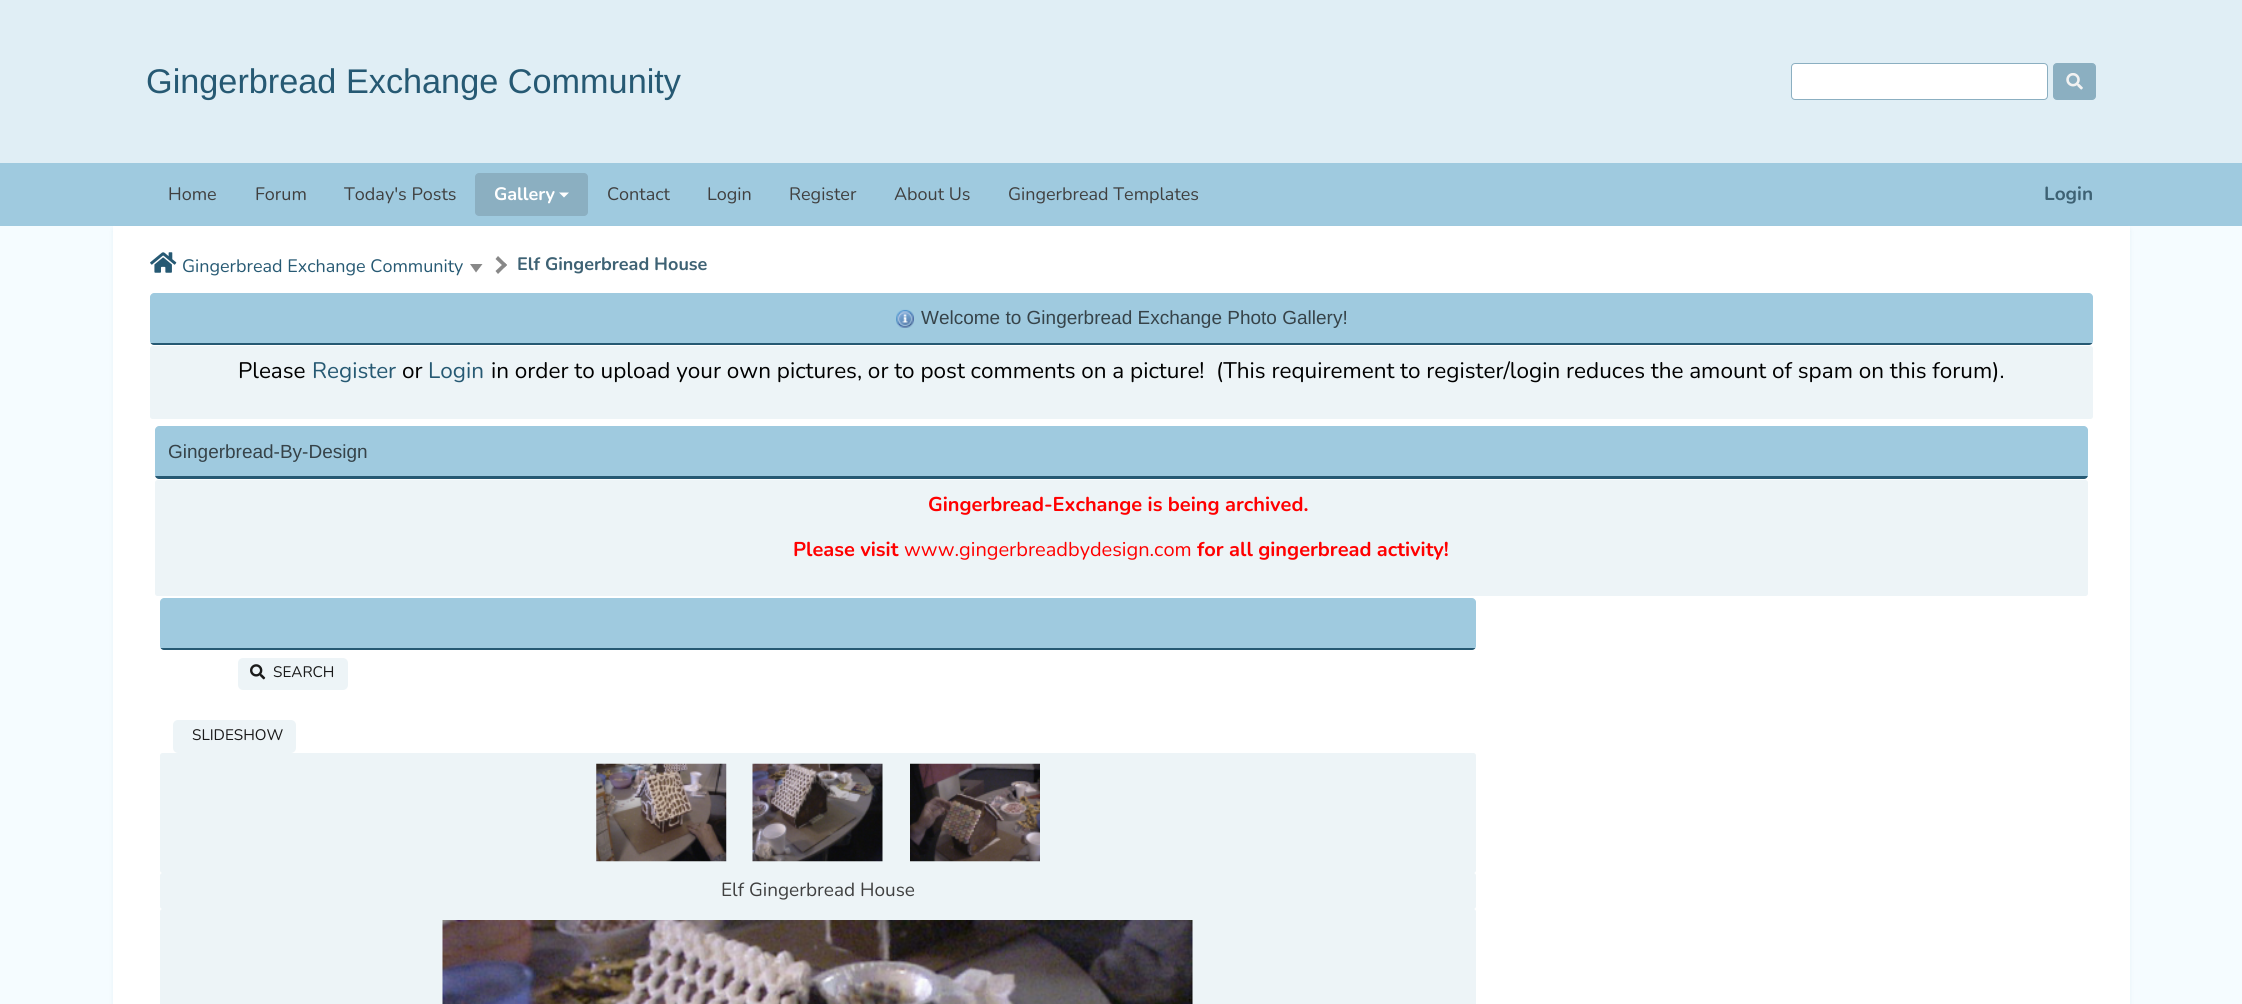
import math
import cairo


def use_color(cr, r, g, b):
  cr.set_source_rgb(r / 255, g / 255, b / 255)

def text(cr, x, y, s, family, size, color, bold=False, italic=False):
  cr.select_font_face(family, cairo.FONT_SLANT_ITALIC if italic else cairo.FONT_SLANT_NORMAL, cairo.FONT_WEIGHT_BOLD if bold else cairo.FONT_WEIGHT_NORMAL)
  cr.set_font_size(size)
  use_color(cr, *color)
  cr.move_to(x, y)
  cr.show_text(s)

def box(cr, x, y, w, h, *color):
  use_color(cr, *color)
  cr.rectangle(x, y, w, h)
  cr.fill()

def round_rect(cr, x, y, w, h, r):
  cr.new_sub_path()
  for i, (u, v) in enumerate([(x + w - r, y + h - r), (x + r, y + h - r), (x + r, y + r), (x + w - r, y + r)]):
    cr.arc(u, v, r, i * math.pi / 2, (i + 1) * math.pi / 2)
  cr.close_path()

def shadow(cr, x, y, w, h, r, blur, alpha):
  cr.push_group_with_content(cairo.CONTENT_ALPHA)
  cr.set_operator(cairo.OPERATOR_SOURCE)
  for i in range(15, -16, -2):
    e = blur * i / 6
    if min(w, h) + 2 * e > 0:
      cr.set_source_rgba(0, 0, 0, alpha * math.erfc((i - 1) / 8.5) / 2)
      round_rect(cr, x - e, y - e, w + 2 * e, h + 2 * e, max(0, min(r + e + blur * .6, min(w, h) / 2 + e)))
      cr.fill()
  cr.mask(cr.pop_group())

def picture(cr, path, x, y, w, h):
  cr.save()
  cr.set_source_surface(cairo.ImageSurface.create_from_png(path), x, y)
  cr.rectangle(x, y, w, h)
  cr.fill()
  cr.restore()

def draw(cr):
  use_color(cr, 245, 252, 255)
  cr.paint()
  box(cr, 0, 0, 2242, 163, 224, 238, 245)
  use_color(cr, 255, 255, 255)
  round_rect(cr, 1791.5, 63.5, 256, 36, 3.5)
  cr.fill_preserve()
  use_color(cr, 139, 175, 193)
  cr.set_line_width(1)
  cr.stroke()
  round_rect(cr, 2053.5, 63.5, 42, 36, 3.5)
  cr.fill_preserve()
  cr.stroke()
  picture(cr, "img_01.png", 2066, 73, 17, 17)
  box(cr, 0, 163, 2242, 63, 159, 202, 223)
  use_color(cr, 139, 175, 193)
  round_rect(cr, 475, 173, 113, 43, 4)
  cr.fill()
  use_color(cr, 255, 255, 255)
  cr.new_path()
  cr.move_to(559, 192.5)
  cr.line_to(569, 192.5)
  cr.line_to(564, 197.5)
  cr.close_path()
  cr.fill()
  use_color(cr, 0, 76, 117)
  shadow(cr, 114, 230, 2015, 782, 0, 2.5, 0.1)
  box(cr, 113, 226, 2017, 778, 255, 255, 255)
  picture(cr, "img_02.png", 150, 252, 27, 21)
  use_color(cr, 136, 136, 136)
  cr.new_path()
  cr.move_to(470, 264)
  cr.line_to(482.5, 264)
  cr.line_to(476, 272.5)
  cr.close_path()
  cr.fill()
  cr.new_path()
  cr.move_to(495.5, 259)
  cr.line_to(498, 256)
  cr.line_to(507, 265)
  cr.line_to(504.5, 267.5)
  cr.close_path()
  cr.fill()
  cr.new_path()
  cr.move_to(495.5, 271)
  cr.line_to(504.5, 262.5)
  cr.line_to(507, 265)
  cr.line_to(498, 274)
  cr.close_path()
  cr.fill()
  cr.save()
  round_rect(cr, 150, 293, 1943, 52, 4)
  cr.clip()
  use_color(cr, 159, 202, 223)
  cr.new_path()
  cr.move_to(154, 293)
  cr.line_to(2089, 293)
  cr.curve_to(2091, 293, 2093, 295, 2093, 297)
  cr.line_to(2093, 343)
  cr.line_to(150, 343)
  cr.line_to(150, 297)
  cr.curve_to(150, 295, 152, 293, 154, 293)
  cr.close_path()
  cr.fill()
  box(cr, 150, 343, 1943, 2, 38, 89, 115)
  cr.restore()
  picture(cr, "img_03.png", 896, 309, 18, 19)
  use_color(cr, 237, 244, 247)
  round_rect(cr, 150, 346, 1943, 73, 2.5)
  cr.fill()
  cr.save()
  round_rect(cr, 155, 426, 1933, 53, 4)
  cr.clip()
  use_color(cr, 159, 202, 223)
  cr.new_path()
  cr.move_to(159, 426)
  cr.line_to(2084, 426)
  cr.curve_to(2086, 426, 2088, 428, 2088, 430)
  cr.line_to(2088, 476)
  cr.line_to(155, 476)
  cr.line_to(155, 430)
  cr.curve_to(155, 428, 157, 426, 159, 426)
  cr.close_path()
  cr.fill()
  box(cr, 155, 476, 1933, 3, 38, 89, 115)
  cr.restore()
  round_rect(cr, 155, 480, 1933, 116, 2.5)
  cr.fill()
  cr.save()
  round_rect(cr, 160, 598, 1316, 52, 4)
  cr.clip()
  use_color(cr, 159, 202, 223)
  cr.new_path()
  cr.move_to(164, 598)
  cr.line_to(1472, 598)
  cr.curve_to(1474, 598, 1476, 600, 1476, 602)
  cr.line_to(1476, 648)
  cr.line_to(160, 648)
  cr.line_to(160, 602)
  cr.curve_to(160, 600, 162, 598, 164, 598)
  cr.close_path()
  cr.fill()
  box(cr, 160, 648, 1316, 2, 38, 89, 115)
  cr.restore()
  round_rect(cr, 238, 658, 110, 32, 5)
  cr.fill()
  picture(cr, "img_04.png", 250, 664, 16, 16)
  round_rect(cr, 173, 720, 123, 33, 5)
  cr.fill()
  round_rect(cr, 160, 753, 1316, 120, 2.5)
  cr.fill()
  picture(cr, "img_05.png", 596, 763, 131, 99)
  picture(cr, "img_06.png", 752, 763, 131, 99)
  picture(cr, "img_07.png", 910, 763, 130, 99)
  round_rect(cr, 160, 873, 1316, 36, 2.5)
  cr.fill()
  round_rect(cr, 160, 909, 1316, 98, 2.5)
  cr.fill()
  picture(cr, "img_08.png", 442, 920, 751, 84)
  text(cr, 146, 93, "Gingerbread Exchange Community", "Liberation Sans", 34.25, (38, 89, 115))
  text(cr, 168, 200, "Home", "Nunito", 18, (64, 64, 64))
  text(cr, 255, 200, "Forum", "Nunito", 18, (64, 64, 64))
  text(cr, 344, 200, "Today's Posts", "Nunito", 18, (64, 64, 64))
  text(cr, 494, 200, "Gallery", "Nunito", 18, (255, 255, 255), bold=True)
  text(cr, 607, 200, "Contact", "Nunito", 18, (64, 64, 64))
  text(cr, 707, 200, "Login", "Nunito", 18, (64, 64, 64))
  text(cr, 789, 200, "Register", "Nunito", 18, (64, 64, 64))
  text(cr, 894, 200, "About Us", "Nunito", 18, (64, 64, 64))
  text(cr, 1008, 200, "Gingerbread Templates", "Nunito", 18, (64, 64, 64))
  text(cr, 2044, 200, "Login", "Nunito", 19, (62, 98, 116), bold=True)
  text(cr, 182, 272, "Gingerbread Exchange Community", "Nunito", 18, (38, 89, 115))
  text(cr, 517, 270, "Elf Gingerbread House", "Nunito", 18, (62, 98, 116), bold=True)
  text(cr, 921, 324, "Welcome to Gingerbread Exchange Photo Gallery!", "Liberation Sans", 19, (54, 67, 73))
  text(cr, 238, 378, "Please", "Nunito", 22.5, (0, 0, 0))
  text(cr, 312, 378, "Register", "Nunito", 22.5, (38, 89, 115))
  text(cr, 402, 378, "or", "Nunito", 22.5, (0, 0, 0))
  text(cr, 428, 378, "Login", "Nunito", 22.5, (38, 89, 115))
  text(cr, 491, 378, "in order to upload your own pictures, or to post comments on a picture!  (This requirement to register/login reduces the amount of spam on this forum).", "Nunito", 22.5, (0, 0, 0))
  text(cr, 168, 458, "Gingerbread-By-Design", "Liberation Sans", 19, (54, 67, 73))
  text(cr, 928, 511, "Gingerbread-Exchange is being archived.", "Nunito", 20, (255, 0, 0), bold=True)
  text(cr, 793, 556, "Please visit", "Nunito", 20, (255, 0, 0), bold=True)
  text(cr, 904, 556, "www.gingerbreadbydesign.com", "Nunito", 20, (255, 0, 0))
  text(cr, 1197, 556, "for all gingerbread activity!", "Nunito", 20, (255, 0, 0), bold=True)
  text(cr, 273, 677, "SEARCH", "Nunito", 15.25, (26, 26, 26))
  text(cr, 192, 740, "SLIDESHOW", "Nunito", 15.25, (26, 26, 26))
  text(cr, 721, 896, "Elf Gingerbread House", "Nunito", 19, (64, 64, 64))


surface = cairo.ImageSurface(cairo.FORMAT_RGB24, 2242, 1004)
cr = cairo.Context(surface)
options = cairo.FontOptions()
options.set_hint_metrics(cairo.HINT_METRICS_OFF)
options.set_hint_style(cairo.HINT_STYLE_NONE)
cr.set_font_options(options)
cr.set_miter_limit(4)
draw(cr)
surface.write_to_png("out.png")
